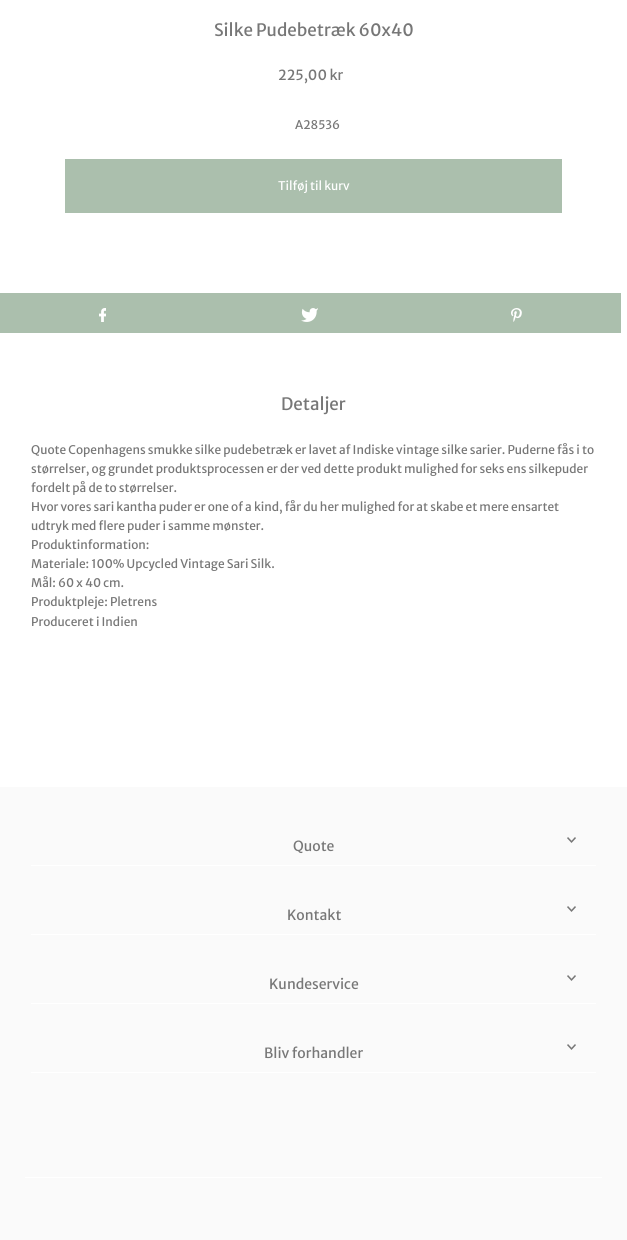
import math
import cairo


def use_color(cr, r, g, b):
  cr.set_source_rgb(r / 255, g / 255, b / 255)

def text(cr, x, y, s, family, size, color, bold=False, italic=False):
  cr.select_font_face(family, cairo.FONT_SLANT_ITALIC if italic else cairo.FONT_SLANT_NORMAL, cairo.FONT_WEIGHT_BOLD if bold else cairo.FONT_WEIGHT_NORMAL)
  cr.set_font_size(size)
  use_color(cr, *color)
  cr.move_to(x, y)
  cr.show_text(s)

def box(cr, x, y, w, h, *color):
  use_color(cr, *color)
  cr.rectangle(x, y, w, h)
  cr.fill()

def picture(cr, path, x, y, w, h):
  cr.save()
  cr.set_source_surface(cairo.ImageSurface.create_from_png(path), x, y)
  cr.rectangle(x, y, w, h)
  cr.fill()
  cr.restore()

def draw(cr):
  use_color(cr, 255, 255, 255)
  cr.paint()
  box(cr, 65, 159, 497, 54, 171, 191, 173)
  box(cr, 0, 293, 621, 40, 171, 191, 173)
  picture(cr, "img_01.png", 99, 308, 7, 14)
  picture(cr, "img_02.png", 301, 308, 17, 14)
  picture(cr, "img_03.png", 511, 308, 11, 14)
  box(cr, 0, 787, 627, 453, 250, 250, 250)
  box(cr, 31, 865, 565, 1, 255, 255, 255)
  picture(cr, "img_04.png", 567, 837, 9, 6)
  box(cr, 31, 934, 565, 1, 255, 255, 255)
  picture(cr, "img_04.png", 567, 906, 9, 6)
  box(cr, 31, 1003, 565, 1, 255, 255, 255)
  picture(cr, "img_04.png", 567, 975, 9, 6)
  box(cr, 31, 1072, 565, 1, 255, 255, 255)
  picture(cr, "img_04.png", 567, 1044, 9, 6)
  box(cr, 25, 1177, 577, 1, 255, 255, 255)
  text(cr, 214, 36, "Silke Pudebetræk 60x40", "Merriweather Sans", 17, (119, 119, 119))
  text(cr, 278, 80, "225,00 kr", "Merriweather Sans", 14, (119, 119, 119))
  text(cr, 295, 129, "A28536", "Merriweather Sans", 11.9, (119, 119, 119))
  text(cr, 278, 190, "Tilføj til kurv", "Merriweather Sans", 11.9, (255, 255, 255))
  text(cr, 281, 410, "Detaljer", "Merriweather Sans", 17, (119, 119, 119))
  text(cr, 31, 454, "Quote Copenhagens smukke silke pudebetræk er lavet af Indiske vintage silke sarier. Puderne fås i to", "Merriweather Sans", 11.9, (119, 119, 119))
  text(cr, 31, 473, "størrelser, og grundet produktsprocessen er der ved dette produkt mulighed for seks ens silkepuder", "Merriweather Sans", 11.9, (119, 119, 119))
  text(cr, 31, 492, "fordelt på de to størrelser.", "Merriweather Sans", 11.9, (119, 119, 119))
  text(cr, 31, 511, "Hvor vores sari kantha puder er one of a kind, får du her mulighed for at skabe et mere ensartet", "Merriweather Sans", 11.9, (119, 119, 119))
  text(cr, 31, 530, "udtryk med flere puder i samme mønster.", "Merriweather Sans", 11.9, (119, 119, 119))
  text(cr, 31, 549, "Produktinformation:", "Merriweather Sans", 11.9, (119, 119, 119))
  text(cr, 31, 568, "Materiale: 100% Upcycled Vintage Sari Silk.", "Merriweather Sans", 11.9, (119, 119, 119))
  text(cr, 31, 587, "Mål: 60 x 40 cm.", "Merriweather Sans", 11.9, (119, 119, 119))
  text(cr, 31, 606, "Produktpleje: Pletrens", "Merriweather Sans", 11.9, (119, 119, 119))
  text(cr, 31, 626, "Produceret i Indien", "Merriweather Sans", 11.9, (119, 119, 119))
  text(cr, 293, 851, "Quote", "Merriweather Sans", 14, (119, 119, 119))
  text(cr, 287, 920, "Kontakt", "Merriweather Sans", 14, (119, 119, 119))
  text(cr, 269, 989, "Kundeservice", "Merriweather Sans", 14, (119, 119, 119))
  text(cr, 264, 1058, "Bliv forhandler", "Merriweather Sans", 14, (119, 119, 119))


surface = cairo.ImageSurface(cairo.FORMAT_RGB24, 627, 1240)
cr = cairo.Context(surface)
options = cairo.FontOptions()
options.set_hint_metrics(cairo.HINT_METRICS_OFF)
options.set_hint_style(cairo.HINT_STYLE_NONE)
cr.set_font_options(options)
cr.set_miter_limit(4)
draw(cr)
surface.write_to_png("out.png")
